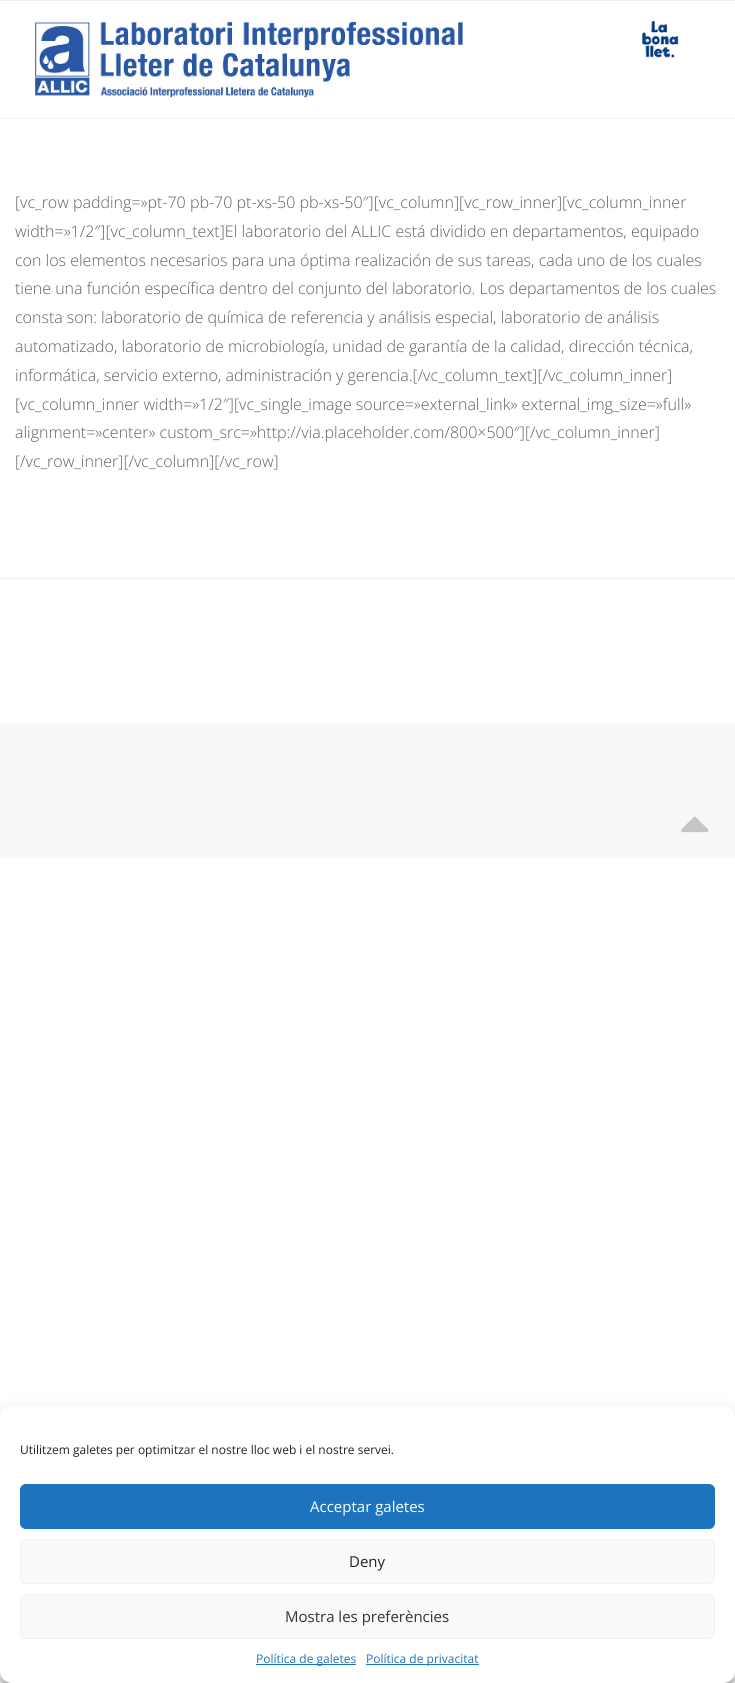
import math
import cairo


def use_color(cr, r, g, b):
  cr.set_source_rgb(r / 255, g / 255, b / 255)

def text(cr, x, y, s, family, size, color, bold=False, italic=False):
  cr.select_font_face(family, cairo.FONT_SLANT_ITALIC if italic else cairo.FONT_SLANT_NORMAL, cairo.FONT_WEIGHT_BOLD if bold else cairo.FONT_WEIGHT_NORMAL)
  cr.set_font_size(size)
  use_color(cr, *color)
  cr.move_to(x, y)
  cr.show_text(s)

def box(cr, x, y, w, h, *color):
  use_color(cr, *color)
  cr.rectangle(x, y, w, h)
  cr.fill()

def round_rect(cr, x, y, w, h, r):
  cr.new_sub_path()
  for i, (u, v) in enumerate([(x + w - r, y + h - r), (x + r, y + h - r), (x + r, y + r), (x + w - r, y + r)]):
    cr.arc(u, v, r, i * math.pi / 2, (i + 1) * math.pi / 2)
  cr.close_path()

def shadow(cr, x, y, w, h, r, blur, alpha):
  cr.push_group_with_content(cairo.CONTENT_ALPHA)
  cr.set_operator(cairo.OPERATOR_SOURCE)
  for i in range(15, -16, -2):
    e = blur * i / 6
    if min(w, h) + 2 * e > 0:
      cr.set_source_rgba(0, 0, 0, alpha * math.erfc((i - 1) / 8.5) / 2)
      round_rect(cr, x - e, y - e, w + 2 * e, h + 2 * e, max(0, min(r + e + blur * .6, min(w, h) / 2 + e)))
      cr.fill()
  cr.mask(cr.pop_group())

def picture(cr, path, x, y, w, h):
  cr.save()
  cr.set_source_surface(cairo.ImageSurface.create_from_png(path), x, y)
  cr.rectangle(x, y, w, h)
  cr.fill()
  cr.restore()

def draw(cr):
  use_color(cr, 255, 255, 255)
  cr.paint()
  box(cr, 0, 0, 735, 1, 238, 238, 238)
  box(cr, 0, 118, 735, 1, 242, 242, 242)
  picture(cr, "img_01.png", 35, 21, 428, 77)
  picture(cr, "img_02.png", 641, 21, 38, 37)
  box(cr, 0, 578, 735, 1, 238, 238, 238)
  box(cr, 0, 723, 735, 135, 248, 248, 248)
  picture(cr, "img_03.png", 681, 816, 28, 17)
  use_color(cr, 0, 0, 0)
  shadow(cr, 0, 1412, 735, 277, 12, 3, 0.23)
  shadow(cr, 0, 1416, 735, 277, 12, 10, 0.19)
  use_color(cr, 255, 255, 255)
  round_rect(cr, 0, 1406, 735, 277, 12)
  cr.fill()
  use_color(cr, 30, 115, 190)
  round_rect(cr, 20.5, 1484.5, 694, 44, 5.5)
  cr.fill_preserve()
  cr.set_line_width(1)
  cr.stroke()
  use_color(cr, 249, 249, 249)
  round_rect(cr, 20.5, 1539.5, 694, 44, 5.5)
  cr.fill_preserve()
  use_color(cr, 242, 242, 242)
  cr.stroke()
  use_color(cr, 249, 249, 249)
  round_rect(cr, 20.5, 1594.5, 694, 44, 5.5)
  cr.fill_preserve()
  use_color(cr, 242, 242, 242)
  cr.stroke()
  box(cr, 256, 1664, 100, 1, 30, 115, 190)
  box(cr, 366, 1664, 113, 1, 30, 115, 190)
  text(cr, 15, 208, "[vc_row padding=»pt-70 pb-70 pt-xs-50 pb-xs-50″][vc_column][vc_row_inner][vc_column_inner", "Open Sans Light", 16, (95, 95, 95))
  text(cr, 15, 237, "width=»1/2″][vc_column_text]El laboratorio del ALLIC está dividido en departamentos, equipado", "Open Sans Light", 16, (95, 95, 95))
  text(cr, 15, 266, "con los elementos necesarios para una óptima realización de sus tareas, cada uno de los cuales", "Open Sans Light", 16, (95, 95, 95))
  text(cr, 15, 294, "tiene una función específica dentro del conjunto del laboratorio. Los departamentos de los cuales", "Open Sans Light", 16, (95, 95, 95))
  text(cr, 15, 323, "consta son: laboratorio de química de referencia y análisis especial, laboratorio de análisis", "Open Sans Light", 16, (95, 95, 95))
  text(cr, 15, 352, "automatizado, laboratorio de microbiología, unidad de garantía de la calidad, dirección técnica,", "Open Sans Light", 16, (95, 95, 95))
  text(cr, 15, 381, "informática, servicio externo, administración y gerencia.[/vc_column_text][/vc_column_inner]", "Open Sans Light", 16, (95, 95, 95))
  text(cr, 15, 410, "[vc_column_inner width=»1/2″][vc_single_image source=»external_link» external_img_size=»full»", "Open Sans Light", 16, (95, 95, 95))
  text(cr, 15, 438, "alignment=»center» custom_src=»http://via.placeholder.com/800×500″][/vc_column_inner]", "Open Sans Light", 16, (95, 95, 95))
  text(cr, 15, 467, "[/vc_row_inner][/vc_column][/vc_row]", "Open Sans Light", 16, (95, 95, 95))
  text(cr, 20, 1454, "Utilitzem galetes per optimitzar el nostre lloc web i el nostre servei.", "Open Sans", 12, (34, 34, 34))
  text(cr, 310, 1512, "Acceptar galetes", "Open Sans", 15, (255, 255, 255))
  text(cr, 349, 1567, "Deny", "Open Sans", 15, (34, 34, 34))
  text(cr, 285, 1622, "Mostra les preferències", "Open Sans", 15, (51, 51, 51))
  text(cr, 256, 1663, "Política de galetes", "Open Sans", 12, (30, 115, 190))
  text(cr, 366, 1663, "Política de privacitat", "Open Sans", 12, (30, 115, 190))


surface = cairo.ImageSurface(cairo.FORMAT_RGB24, 735, 1683)
cr = cairo.Context(surface)
options = cairo.FontOptions()
options.set_hint_metrics(cairo.HINT_METRICS_OFF)
options.set_hint_style(cairo.HINT_STYLE_NONE)
cr.set_font_options(options)
cr.set_miter_limit(4)
draw(cr)
surface.write_to_png("out.png")
